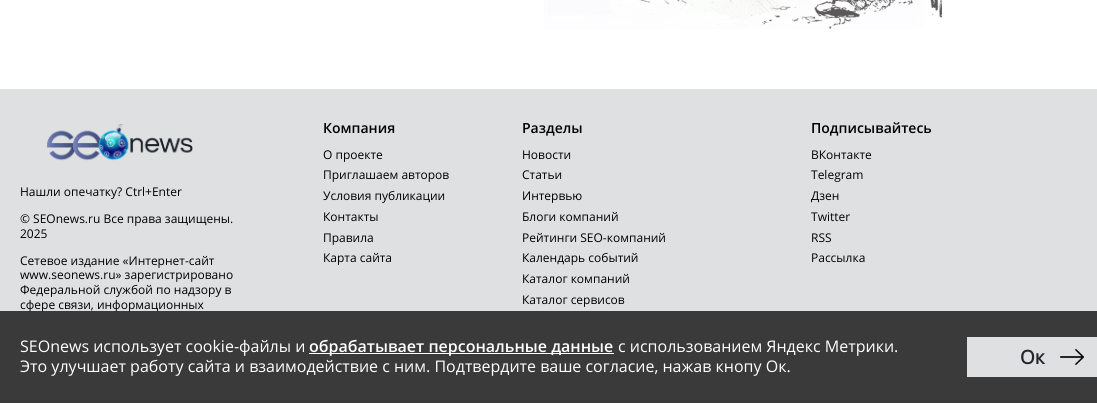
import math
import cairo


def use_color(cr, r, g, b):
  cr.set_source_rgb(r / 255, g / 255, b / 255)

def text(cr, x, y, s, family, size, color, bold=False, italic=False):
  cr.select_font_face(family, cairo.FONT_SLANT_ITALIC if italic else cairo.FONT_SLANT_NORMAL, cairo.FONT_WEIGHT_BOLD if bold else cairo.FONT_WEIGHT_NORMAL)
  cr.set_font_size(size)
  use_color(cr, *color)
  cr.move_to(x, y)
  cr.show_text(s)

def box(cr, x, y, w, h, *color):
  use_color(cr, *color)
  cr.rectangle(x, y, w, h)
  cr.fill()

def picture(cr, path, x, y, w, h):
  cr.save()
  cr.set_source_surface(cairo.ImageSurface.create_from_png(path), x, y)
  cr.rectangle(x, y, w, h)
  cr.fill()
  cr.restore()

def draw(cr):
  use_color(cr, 255, 255, 255)
  cr.paint()
  box(cr, 0, 89, 1097, 314, 223, 224, 225)
  picture(cr, "img_01.png", 47, 124, 146, 37)
  picture(cr, "img_02.png", 544, 0, 398, 29)
  text(cr, 20, 196, "Нашли опечатку? Ctrl+Enter", "Open Sans", 12, (0, 0, 0))
  text(cr, 20, 223, "© SEOnews.ru Все права защищены.", "Open Sans", 12, (0, 0, 0))
  text(cr, 20, 238, "2025", "Open Sans", 12, (0, 0, 0))
  text(cr, 20, 265, "Сетевое издание «Интернет-сайт", "Open Sans", 12, (0, 0, 0))
  text(cr, 20, 279, "www.seonews.ru» зарегистрировано", "Open Sans", 12, (0, 0, 0))
  text(cr, 20, 294, "Федеральной службой по надзору в", "Open Sans", 12, (0, 0, 0))
  text(cr, 20, 309, "сфере связи, информационных", "Open Sans", 12, (0, 0, 0))
  text(cr, 323, 133, "Компания", "Open Sans SemiBold", 14, (0, 0, 0))
  text(cr, 323, 159, "О проекте", "Open Sans", 12, (0, 0, 0))
  text(cr, 323, 179, "Приглашаем авторов", "Open Sans", 12, (0, 0, 0))
  text(cr, 323, 200, "Условия публикации", "Open Sans", 12, (0, 0, 0))
  text(cr, 323, 221, "Контакты", "Open Sans", 12, (0, 0, 0))
  text(cr, 323, 242, "Правила", "Open Sans", 12, (0, 0, 0))
  text(cr, 323, 262, "Карта сайта", "Open Sans", 12, (0, 0, 0))
  text(cr, 522, 133, "Разделы", "Open Sans SemiBold", 14, (0, 0, 0))
  text(cr, 522, 159, "Новости", "Open Sans", 12, (0, 0, 0))
  text(cr, 522, 179, "Статьи", "Open Sans", 12, (0, 0, 0))
  text(cr, 522, 200, "Интервью", "Open Sans", 12, (0, 0, 0))
  text(cr, 522, 221, "Блоги компаний", "Open Sans", 12, (0, 0, 0))
  text(cr, 522, 242, "Рейтинги SEO-компаний", "Open Sans", 12, (0, 0, 0))
  text(cr, 522, 262, "Календарь событий", "Open Sans", 12, (0, 0, 0))
  text(cr, 522, 283, "Каталог компаний", "Open Sans", 12, (0, 0, 0))
  text(cr, 522, 304, "Каталог сервисов", "Open Sans", 12, (0, 0, 0))
  text(cr, 811, 133, "Подписывайтесь", "Open Sans SemiBold", 14, (0, 0, 0))
  text(cr, 811, 159, "ВКонтакте", "Open Sans", 12, (0, 0, 0))
  text(cr, 811, 179, "Telegram", "Open Sans", 12, (0, 0, 0))
  text(cr, 811, 200, "Дзен", "Open Sans", 12, (0, 0, 0))
  text(cr, 811, 221, "Тwitter", "Open Sans", 12, (0, 0, 0))
  text(cr, 811, 242, "RSS", "Open Sans", 12, (0, 0, 0))
  text(cr, 811, 262, "Рассылка", "Open Sans", 12, (0, 0, 0))
  cr.set_source_rgba(0.157, 0.157, 0.157, 0.9)
  cr.rectangle(0, 311, 1097, 92)
  cr.fill()
  text(cr, 20, 352, "SEOnews использует cookie-файлы и", "Open Sans", 16, (255, 255, 255))
  box(cr, 309, 353, 305, 1, 255, 255, 255)
  text(cr, 309, 352, "обрабатывает персональные данные", "Open Sans SemiBold", 16, (255, 255, 255))
  text(cr, 618, 352, "с использованием Яндекс Метрики.", "Open Sans", 16, (255, 255, 255))
  text(cr, 20, 372, "Это улучшает работу сайта и взаимодействие с ним. Подтвердите ваше согласие, нажав кнопу Ок.", "Open Sans", 16, (255, 255, 255))
  box(cr, 967, 337, 130, 40, 223, 224, 225)
  text(cr, 1020, 364, "Ок", "Open Sans", 19, (35, 38, 43), bold=True)
  picture(cr, "img_03.png", 1060, 349, 24, 16)


surface = cairo.ImageSurface(cairo.FORMAT_RGB24, 1097, 403)
cr = cairo.Context(surface)
options = cairo.FontOptions()
options.set_hint_metrics(cairo.HINT_METRICS_OFF)
options.set_hint_style(cairo.HINT_STYLE_NONE)
cr.set_font_options(options)
cr.set_miter_limit(4)
draw(cr)
surface.write_to_png("out.png")
